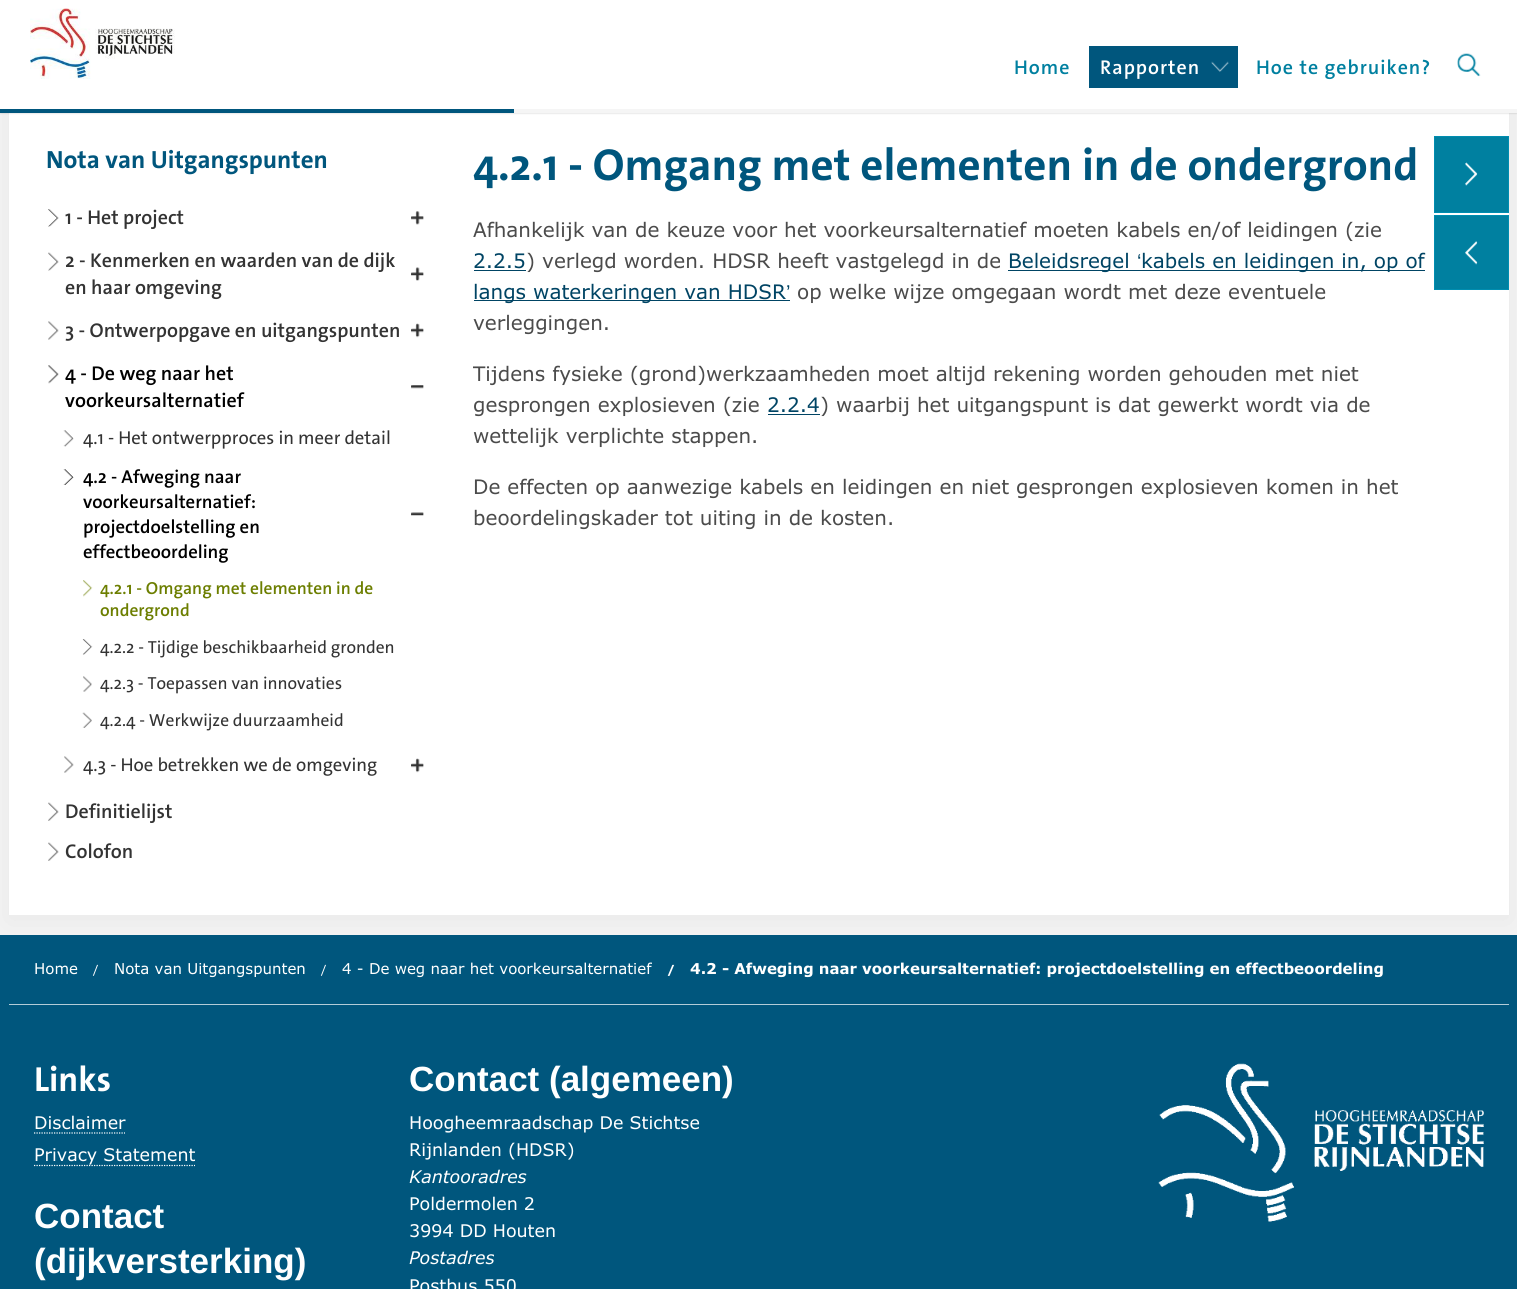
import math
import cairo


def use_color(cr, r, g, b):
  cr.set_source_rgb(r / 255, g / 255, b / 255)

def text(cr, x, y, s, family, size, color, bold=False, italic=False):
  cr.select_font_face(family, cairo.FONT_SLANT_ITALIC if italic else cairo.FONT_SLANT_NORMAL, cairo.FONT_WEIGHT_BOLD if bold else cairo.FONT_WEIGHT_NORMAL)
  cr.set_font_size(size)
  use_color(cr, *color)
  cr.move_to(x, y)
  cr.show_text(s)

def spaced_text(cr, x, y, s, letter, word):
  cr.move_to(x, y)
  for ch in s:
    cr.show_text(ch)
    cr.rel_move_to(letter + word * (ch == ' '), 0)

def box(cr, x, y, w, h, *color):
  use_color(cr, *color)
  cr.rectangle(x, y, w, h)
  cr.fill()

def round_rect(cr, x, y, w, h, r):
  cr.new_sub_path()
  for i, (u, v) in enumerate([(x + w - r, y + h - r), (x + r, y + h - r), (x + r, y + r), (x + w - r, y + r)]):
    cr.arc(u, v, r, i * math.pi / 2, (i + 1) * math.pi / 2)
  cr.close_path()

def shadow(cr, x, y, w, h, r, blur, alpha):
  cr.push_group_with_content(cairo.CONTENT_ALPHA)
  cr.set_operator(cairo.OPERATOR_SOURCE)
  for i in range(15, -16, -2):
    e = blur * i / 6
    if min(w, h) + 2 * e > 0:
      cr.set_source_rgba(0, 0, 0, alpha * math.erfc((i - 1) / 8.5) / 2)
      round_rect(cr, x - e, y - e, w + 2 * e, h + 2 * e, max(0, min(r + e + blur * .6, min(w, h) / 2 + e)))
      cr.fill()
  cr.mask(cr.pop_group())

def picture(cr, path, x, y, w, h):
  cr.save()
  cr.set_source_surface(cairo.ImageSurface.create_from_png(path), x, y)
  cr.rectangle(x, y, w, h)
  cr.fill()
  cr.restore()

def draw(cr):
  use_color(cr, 245, 245, 245)
  cr.paint()
  use_color(cr, 0, 0, 0)
  shadow(cr, 5, 83, 1508, 841, 0, 19, 0.05)
  box(cr, 9, 113, 1500, 802, 255, 255, 255)
  use_color(cr, 0, 0, 0)
  shadow(cr, 0, 0, 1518, 113, 0, 1, 0.2)
  box(cr, 0, 0, 1517, 109, 255, 255, 255)
  picture(cr, "img_01.png", 30, 8, 145, 71)
  box(cr, 1089, 46, 149, 42, 0, 86, 125)
  picture(cr, "img_02.png", 1211, 61, 18, 11)
  picture(cr, "img_03.png", 1457, 53, 24, 24)
  box(cr, 514, 109, 1003, 4, 245, 245, 245)
  box(cr, 0, 109, 514, 4, 0, 86, 125)
  picture(cr, "img_04.png", 48, 209, 11, 18)
  picture(cr, "img_05.png", 411, 211, 13, 14)
  picture(cr, "img_06.png", 48, 252, 11, 19)
  picture(cr, "img_07.png", 411, 267, 13, 14)
  picture(cr, "img_08.png", 48, 321, 11, 19)
  picture(cr, "img_09.png", 411, 323, 13, 15)
  picture(cr, "img_10.png", 48, 365, 11, 19)
  picture(cr, "img_11.png", 411, 385, 13, 4)
  picture(cr, "img_12.png", 63, 430, 11, 17)
  picture(cr, "img_13.png", 63, 469, 11, 16)
  picture(cr, "img_14.png", 411, 512, 13, 4)
  picture(cr, "img_15.png", 83, 580, 10, 17)
  picture(cr, "img_16.png", 82, 639, 11, 16)
  picture(cr, "img_17.png", 83, 676, 9, 16)
  picture(cr, "img_18.png", 82, 712, 10, 16)
  picture(cr, "img_19.png", 64, 756, 10, 17)
  picture(cr, "img_09.png", 411, 758, 13, 15)
  picture(cr, "img_20.png", 48, 802, 11, 19)
  picture(cr, "img_21.png", 48, 842, 11, 19)
  box(cr, 474, 270, 52, 1, 0, 68, 100)
  box(cr, 1008, 270, 417, 1, 0, 68, 100)
  box(cr, 474, 300, 316, 1, 0, 68, 100)
  box(cr, 768, 414, 52, 1, 0, 68, 100)
  use_color(cr, 0, 128, 160)
  cr.rectangle(1434.5, 136.5, 74, 76)
  cr.fill_preserve()
  use_color(cr, 0, 141, 176)
  cr.set_line_width(1)
  cr.stroke()
  picture(cr, "img_22.png", 1465, 162, 13, 24)
  use_color(cr, 0, 128, 160)
  cr.rectangle(1434.5, 215.5, 74, 74)
  cr.fill_preserve()
  use_color(cr, 0, 141, 176)
  cr.stroke()
  picture(cr, "img_23.png", 1465, 241, 13, 24)
  box(cr, 0, 935, 1517, 354, 0, 86, 125)
  box(cr, 9, 1004, 1500, 1, 179, 204, 216)
  cr.new_path()
  cr.move_to(34, 1133)
  cr.line_to(125, 1133)
  use_color(cr, 255, 255, 255)
  cr.set_line_width(1.2)
  cr.set_dash([1.25, 1.25])
  cr.stroke()
  cr.new_path()
  cr.move_to(34, 1165.5)
  cr.line_to(195, 1165.5)
  cr.stroke()
  picture(cr, "img_24.png", 1158, 1063, 326, 159)
  cr.select_font_face("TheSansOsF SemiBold")
  cr.set_font_size(20)
  use_color(cr, 0, 128, 160)
  spaced_text(cr, 1014, 74, "Home", 1, 0)
  use_color(cr, 255, 255, 255)
  spaced_text(cr, 1100, 74, "Rapporten", 1, 0)
  use_color(cr, 0, 128, 160)
  spaced_text(cr, 1256, 74, "Hoe te gebruiken?", 1, 0)
  text(cr, 46, 168, "Nota van Uitgangspunten", "TheSansOsF", 25, (0, 86, 125), bold=True)
  text(cr, 65, 224, "1 - Het project", "TheSansOsF SemiBold", 20, (51, 51, 51))
  text(cr, 65, 267, "2 - Kenmerken en waarden van de dijk", "TheSansOsF SemiBold", 20, (51, 51, 51))
  text(cr, 65, 294, "en haar omgeving", "TheSansOsF SemiBold", 20, (51, 51, 51))
  text(cr, 65, 337, "3 - Ontwerpopgave en uitgangspunten", "TheSansOsF SemiBold", 20, (51, 51, 51))
  text(cr, 65, 380, "4 - De weg naar het", "TheSansOsF SemiBold", 20, (0, 0, 0))
  text(cr, 65, 407, "voorkeursalternatief", "TheSansOsF SemiBold", 20, (0, 0, 0))
  text(cr, 83, 444, "4.1 - Het ontwerpproces in meer detail", "TheSansOsF Medium", 18.75, (51, 51, 51))
  text(cr, 83, 483, "4.2 - Afweging naar", "TheSansOsF SemiBold", 18.75, (0, 0, 0))
  text(cr, 83, 508, "voorkeursalternatief:", "TheSansOsF SemiBold", 18.75, (0, 0, 0))
  text(cr, 83, 533, "projectdoelstelling en", "TheSansOsF SemiBold", 18.75, (0, 0, 0))
  text(cr, 83, 558, "effectbeoordeling", "TheSansOsF SemiBold", 18.75, (0, 0, 0))
  text(cr, 100, 594, "4.2.1 - Omgang met elementen in de", "TheSansOsF SemiBold", 17.5, (108, 126, 0))
  text(cr, 100, 616, "ondergrond", "TheSansOsF SemiBold", 17.5, (108, 126, 0))
  text(cr, 100, 653, "4.2.2 - Tijdige beschikbaarheid gronden", "TheSansOsF Medium", 17.5, (51, 51, 51))
  text(cr, 100, 689, "4.2.3 - Toepassen van innovaties", "TheSansOsF Medium", 17.5, (51, 51, 51))
  text(cr, 100, 726, "4.2.4 - Werkwijze duurzaamheid", "TheSansOsF Medium", 17.5, (51, 51, 51))
  text(cr, 83, 771, "4.3 - Hoe betrekken we de omgeving", "TheSansOsF Medium", 18.75, (51, 51, 51))
  text(cr, 65, 818, "Definitielijst", "TheSansOsF SemiBold", 20, (51, 51, 51))
  text(cr, 65, 858, "Colofon", "TheSansOsF SemiBold", 20, (51, 51, 51))
  text(cr, 473, 180, "4.2.1 - Omgang met elementen in de ondergrond", "TheSansOsF", 45, (0, 86, 125), bold=True)
  text(cr, 473, 237, "Afhankelijk van de keuze voor het voorkeursalternatief moeten kabels en/of leidingen (zie", "Verdana", 20, (75, 75, 75))
  text(cr, 473, 268, "2.2.5", "Verdana", 20, (0, 68, 100))
  text(cr, 526, 268, ") verlegd worden. HDSR heeft vastgelegd in de", "Verdana", 20, (75, 75, 75))
  text(cr, 1008, 268, "Beleidsregel", "Verdana", 20, (0, 68, 100))
  text(cr, 1137, 268, "‘", "Liberation Sans", 20, (0, 68, 100))
  text(cr, 1141, 268, "kabels en leidingen in, op of", "Verdana", 20, (0, 68, 100))
  text(cr, 473, 299, "langs waterkeringen van HDSR", "Verdana", 20, (0, 68, 100))
  text(cr, 786, 299, "’", "Liberation Sans", 20, (0, 68, 100))
  text(cr, 797, 299, "op welke wijze omgegaan wordt met deze eventuele", "Verdana", 20, (75, 75, 75))
  text(cr, 473, 330, "verleggingen.", "Verdana", 20, (75, 75, 75))
  text(cr, 473, 381, "Tijdens fysieke (grond)werkzaamheden moet altijd rekening worden gehouden met niet", "Verdana", 20, (75, 75, 75))
  text(cr, 473, 412, "gesprongen explosieven (zie", "Verdana", 20, (75, 75, 75))
  text(cr, 767, 412, "2.2.4", "Verdana", 20, (0, 68, 100))
  text(cr, 820, 412, ") waarbij het uitgangspunt is dat gewerkt wordt via de", "Verdana", 20, (75, 75, 75))
  text(cr, 473, 443, "wettelijk verplichte stappen.", "Verdana", 20, (75, 75, 75))
  text(cr, 473, 494, "De effecten op aanwezige kabels en leidingen en niet gesprongen explosieven komen in het", "Verdana", 20, (75, 75, 75))
  text(cr, 473, 525, "beoordelingskader tot uiting in de kosten.", "Verdana", 20, (75, 75, 75))
  text(cr, 34, 974, "Home", "Verdana", 15, (255, 255, 255))
  text(cr, 93, 974, "/", "Verdana", 12, (255, 255, 255))
  text(cr, 114, 974, "Nota van Uitgangspunten", "Verdana", 15, (255, 255, 255))
  text(cr, 321, 974, "/", "Verdana", 12, (255, 255, 255))
  text(cr, 342, 974, "4 - De weg naar het voorkeursalternatief", "Verdana", 15, (255, 255, 255))
  text(cr, 667, 974, "/", "Verdana", 12, (255, 255, 255), bold=True)
  text(cr, 690, 974, "4.2 - Afweging naar voorkeursalternatief: projectdoelstelling en effectbeoordeling", "Verdana", 15, (255, 255, 255), bold=True)
  text(cr, 34, 1091, "Links", "TheSansOsF", 35, (255, 255, 255), bold=True)
  text(cr, 34, 1129, "Disclaimer", "Verdana", 17.5, (255, 255, 255))
  text(cr, 34, 1161, "Privacy Statement", "Verdana", 17.5, (255, 255, 255))
  text(cr, 34, 1228, "Contact", "Liberation Sans", 35, (255, 255, 255), bold=True)
  text(cr, 34, 1273, "(dijkversterking)", "Liberation Sans", 35, (255, 255, 255), bold=True)
  text(cr, 409, 1091, "Contact (algemeen)", "Liberation Sans", 35, (255, 255, 255), bold=True)
  text(cr, 409, 1129, "Hoogheemraadschap De Stichtse", "Verdana", 17.5, (255, 255, 255))
  text(cr, 409, 1156, "Rijnlanden (HDSR)", "Verdana", 17.5, (255, 255, 255))
  text(cr, 409, 1183, "Kantooradres", "Verdana", 17.5, (255, 255, 255), italic=True)
  text(cr, 409, 1210, "Poldermolen 2", "Verdana", 17.5, (255, 255, 255))
  text(cr, 409, 1237, "3994 DD Houten", "Verdana", 17.5, (255, 255, 255))
  text(cr, 409, 1264, "Postadres", "Verdana", 17.5, (255, 255, 255), italic=True)
  text(cr, 409, 1292, "Postbus 550", "Verdana", 17.5, (255, 255, 255))


surface = cairo.ImageSurface(cairo.FORMAT_RGB24, 1517, 1289)
cr = cairo.Context(surface)
options = cairo.FontOptions()
options.set_hint_metrics(cairo.HINT_METRICS_OFF)
options.set_hint_style(cairo.HINT_STYLE_NONE)
cr.set_font_options(options)
cr.set_miter_limit(4)
draw(cr)
surface.write_to_png("out.png")
